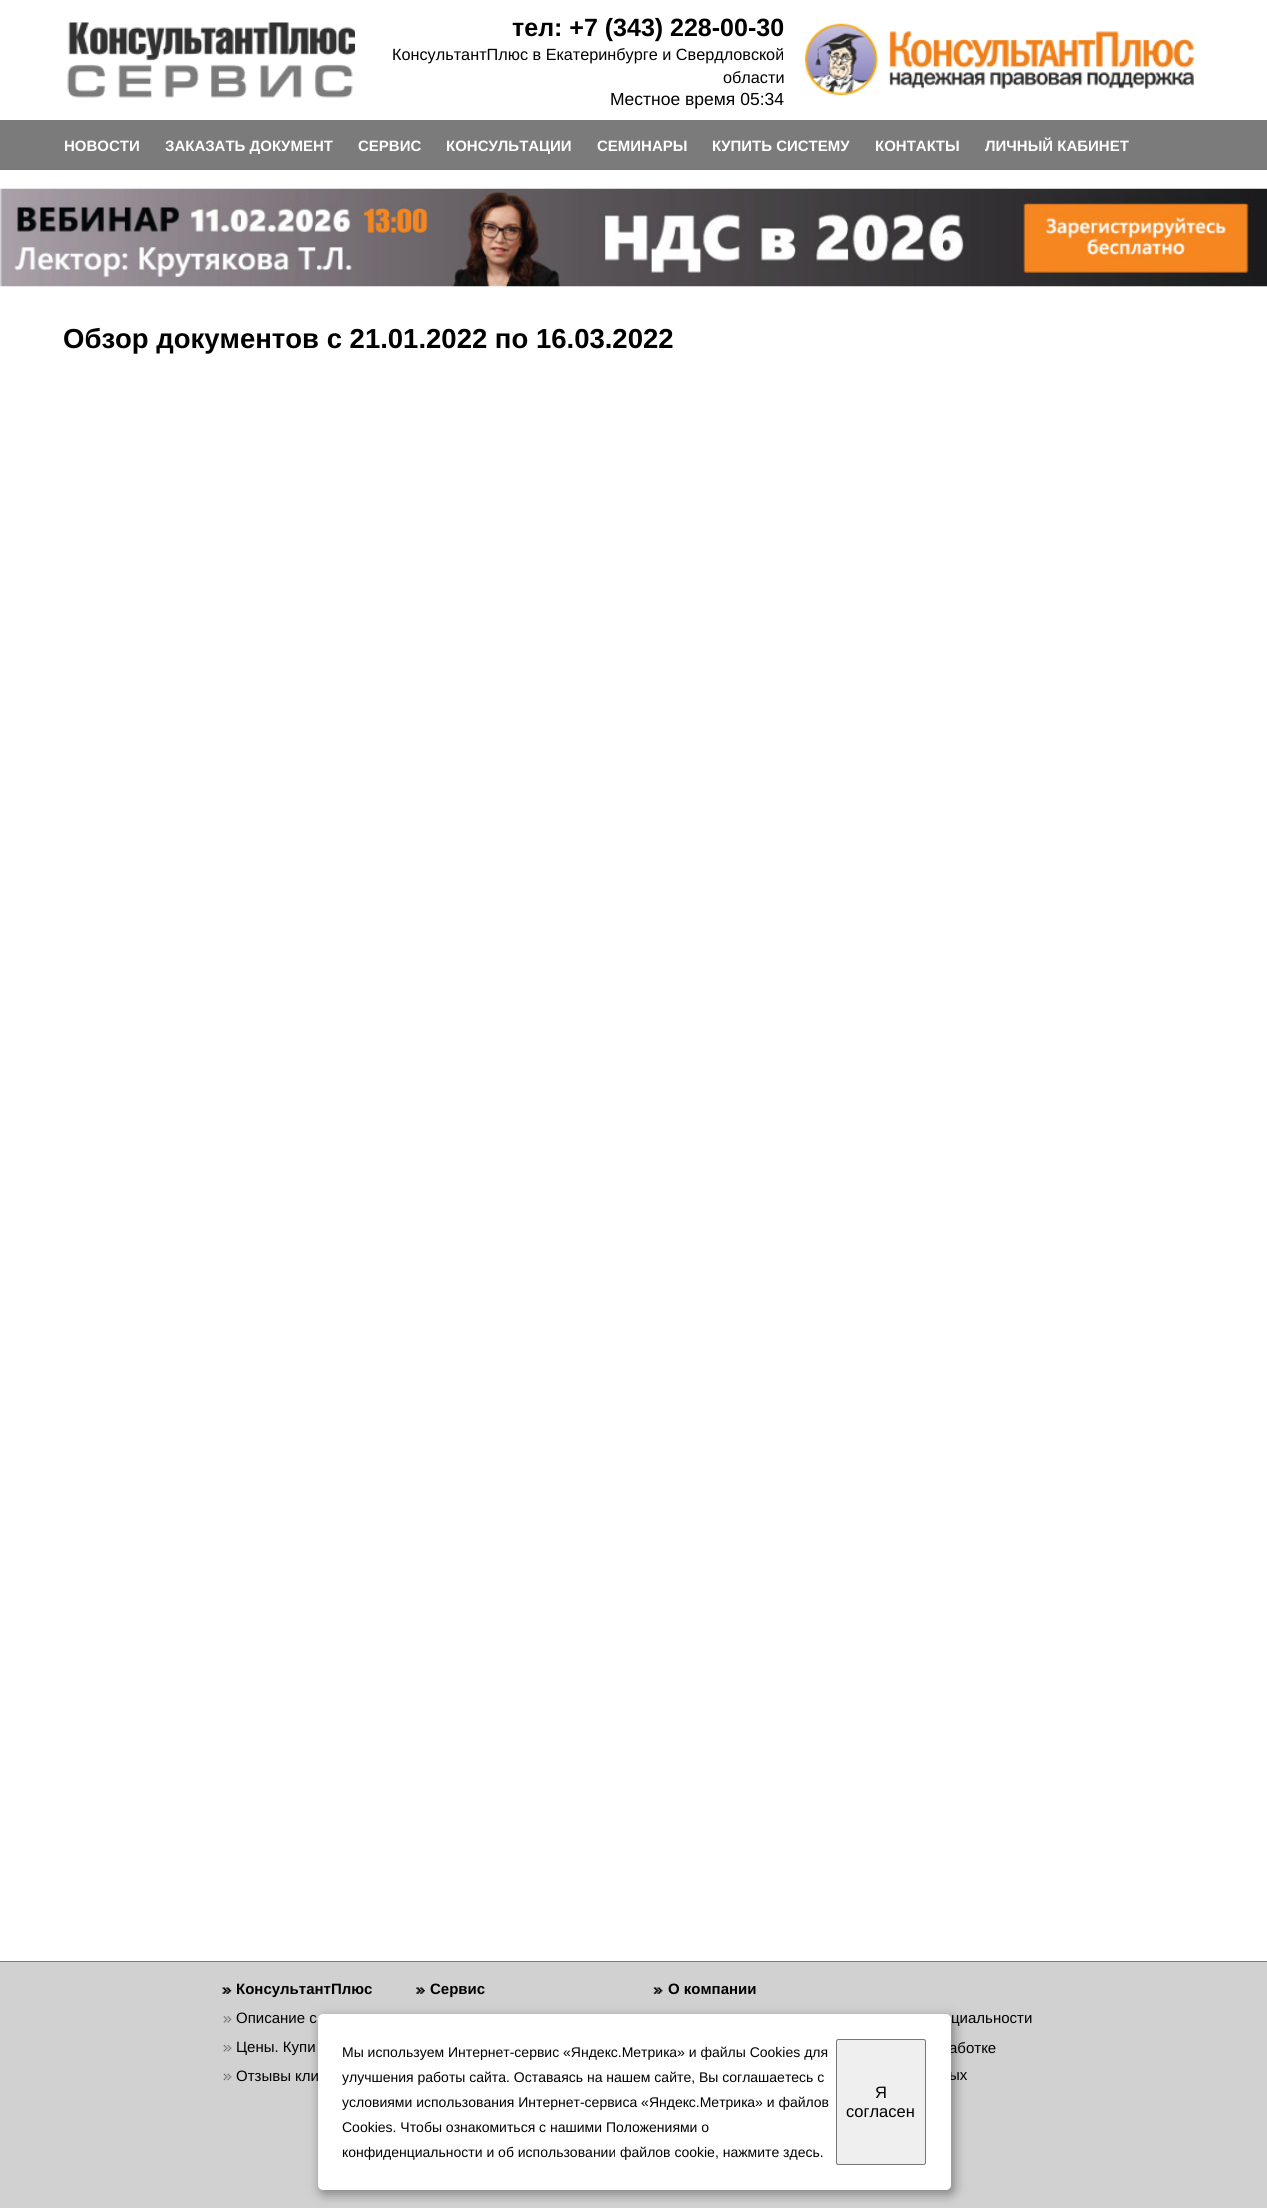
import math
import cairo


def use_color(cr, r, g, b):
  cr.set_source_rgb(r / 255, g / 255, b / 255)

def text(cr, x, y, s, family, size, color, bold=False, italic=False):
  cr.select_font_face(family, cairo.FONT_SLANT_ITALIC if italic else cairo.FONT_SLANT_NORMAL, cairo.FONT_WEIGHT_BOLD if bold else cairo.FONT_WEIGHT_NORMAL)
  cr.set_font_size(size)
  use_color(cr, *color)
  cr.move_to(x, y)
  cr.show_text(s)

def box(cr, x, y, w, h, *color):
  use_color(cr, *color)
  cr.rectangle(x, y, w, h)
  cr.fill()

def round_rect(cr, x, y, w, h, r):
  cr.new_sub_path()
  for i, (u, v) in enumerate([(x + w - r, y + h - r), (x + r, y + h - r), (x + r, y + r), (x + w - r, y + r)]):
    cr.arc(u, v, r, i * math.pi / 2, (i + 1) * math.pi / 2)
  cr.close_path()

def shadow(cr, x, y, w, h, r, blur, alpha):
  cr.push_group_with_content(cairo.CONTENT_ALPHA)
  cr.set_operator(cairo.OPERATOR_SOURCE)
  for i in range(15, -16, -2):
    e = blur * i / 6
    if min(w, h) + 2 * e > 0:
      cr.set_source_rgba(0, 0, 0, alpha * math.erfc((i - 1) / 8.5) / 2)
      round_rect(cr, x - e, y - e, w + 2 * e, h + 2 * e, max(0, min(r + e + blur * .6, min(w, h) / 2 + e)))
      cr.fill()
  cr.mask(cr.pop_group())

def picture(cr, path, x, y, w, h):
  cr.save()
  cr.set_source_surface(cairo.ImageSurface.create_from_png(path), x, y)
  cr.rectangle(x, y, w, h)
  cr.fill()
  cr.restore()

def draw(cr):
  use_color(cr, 255, 255, 255)
  cr.paint()
  picture(cr, "img_01.png", 67, 22, 288, 76)
  picture(cr, "img_02.png", 804, 23, 390, 73)
  box(cr, 0, 120, 1267, 50, 123, 123, 123)
  picture(cr, "img_03.png", 0, 188, 1267, 99)
  box(cr, 0, 1962, 1267, 246, 209, 209, 209)
  box(cr, 0, 1961, 1267, 1, 123, 123, 123)
  picture(cr, "img_04.png", 222, 1987, 10, 7)
  picture(cr, "img_05.png", 416, 1987, 9, 7)
  picture(cr, "img_06.png", 653, 1987, 10, 7)
  picture(cr, "img_07.png", 223, 2016, 9, 7)
  picture(cr, "img_08.png", 223, 2044, 9, 8)
  picture(cr, "img_09.png", 223, 2073, 9, 8)
  use_color(cr, 0, 0, 0)
  shadow(cr, 320, 2018, 634, 176, 5, 6, 0.4)
  text(cr, 512, 36, "тел: +7 (343) 228-00-30", "Liberation Sans", 25, (0, 0, 0), bold=True)
  text(cr, 392, 60, "КонсультантПлюс в Екатеринбурге и Свердловской", "Liberation Sans", 16.25, (0, 0, 0))
  text(cr, 723, 83, "области", "Liberation Sans", 16.25, (0, 0, 0))
  text(cr, 610, 105, "Местное время 05:34", "Liberation Sans", 17.5, (0, 0, 0))
  text(cr, 64, 151, "НОВОСТИ", "Liberation Sans", 15, (255, 255, 255), bold=True)
  text(cr, 165, 151, "ЗАКАЗАТЬ ДОКУМЕНТ", "Liberation Sans", 15, (255, 255, 255), bold=True)
  text(cr, 358, 151, "СЕРВИС", "Liberation Sans", 15, (255, 255, 255), bold=True)
  text(cr, 446, 151, "КОНСУЛЬТАЦИИ", "Liberation Sans", 15, (255, 255, 255), bold=True)
  text(cr, 597, 151, "СЕМИНАРЫ", "Liberation Sans", 15, (255, 255, 255), bold=True)
  text(cr, 712, 151, "КУПИТЬ СИСТЕМУ", "Liberation Sans", 15, (255, 255, 255), bold=True)
  text(cr, 875, 151, "КОНТАКТЫ", "Liberation Sans", 15, (255, 255, 255), bold=True)
  text(cr, 985, 151, "ЛИЧНЫЙ КАБИНЕТ", "Liberation Sans", 15, (255, 255, 255), bold=True)
  text(cr, 63, 348, "Обзор документов с 21.01.2022 по 16.03.2022", "Liberation Sans", 27.5, (0, 0, 0), bold=True)
  text(cr, 236, 1994, "КонсультантПлюс", "Liberation Sans", 15, (0, 0, 0), bold=True)
  text(cr, 430, 1994, "Сервис", "Liberation Sans", 15, (0, 0, 0), bold=True)
  text(cr, 668, 1994, "О компании", "Liberation Sans", 15, (0, 0, 0), bold=True)
  text(cr, 236, 2023, "Описание с", "Liberation Sans", 15, (0, 0, 0))
  text(cr, 951, 2023, "циальности", "Liberation Sans", 15, (0, 0, 0))
  text(cr, 236, 2052, "Цены. Купи", "Liberation Sans", 15, (0, 0, 0))
  text(cr, 949, 2053, "аботке", "Liberation Sans", 15, (0, 0, 0))
  text(cr, 949, 2080, "ых", "Liberation Sans", 15, (0, 0, 0))
  text(cr, 236, 2081, "Отзывы кли", "Liberation Sans", 15, (0, 0, 0))
  use_color(cr, 255, 255, 255)
  round_rect(cr, 318, 2014, 633, 176, 5)
  cr.fill()
  text(cr, 342, 2057, "Мы используем Интернет-сервис «Яндекс.Метрика» и файлы Cookies для", "Liberation Sans", 14, (0, 0, 0))
  text(cr, 342, 2082, "улучшения работы сайта. Оставаясь на нашем сайте, Вы соглашаетесь с", "Liberation Sans", 14, (0, 0, 0))
  text(cr, 342, 2107, "условиями использования Интернет-сервиса «Яндекс.Метрика» и файлов", "Liberation Sans", 14, (0, 0, 0))
  text(cr, 342, 2132, "Cookies. Чтобы ознакомиться с нашими Положениями о", "Liberation Sans", 14, (0, 0, 0))
  text(cr, 342, 2157, "конфиденциальности и об использовании", "Liberation Sans", 14, (0, 0, 0))
  text(cr, 620, 2157, "файлов cookie, нажмите здесь.", "Liberation Sans", 14, (0, 0, 0))
  use_color(cr, 239, 239, 239)
  round_rect(cr, 836.5, 2039.5, 89, 125, 2)
  cr.fill_preserve()
  use_color(cr, 118, 118, 118)
  cr.set_line_width(1)
  cr.stroke()
  text(cr, 875, 2098, "Я", "Liberation Sans", 16.5, (0, 0, 0))
  text(cr, 846, 2117, "согласен", "Liberation Sans", 16.5, (0, 0, 0))


surface = cairo.ImageSurface(cairo.FORMAT_RGB24, 1267, 2208)
cr = cairo.Context(surface)
options = cairo.FontOptions()
options.set_hint_metrics(cairo.HINT_METRICS_OFF)
options.set_hint_style(cairo.HINT_STYLE_NONE)
cr.set_font_options(options)
cr.set_miter_limit(4)
draw(cr)
surface.write_to_png("out.png")
